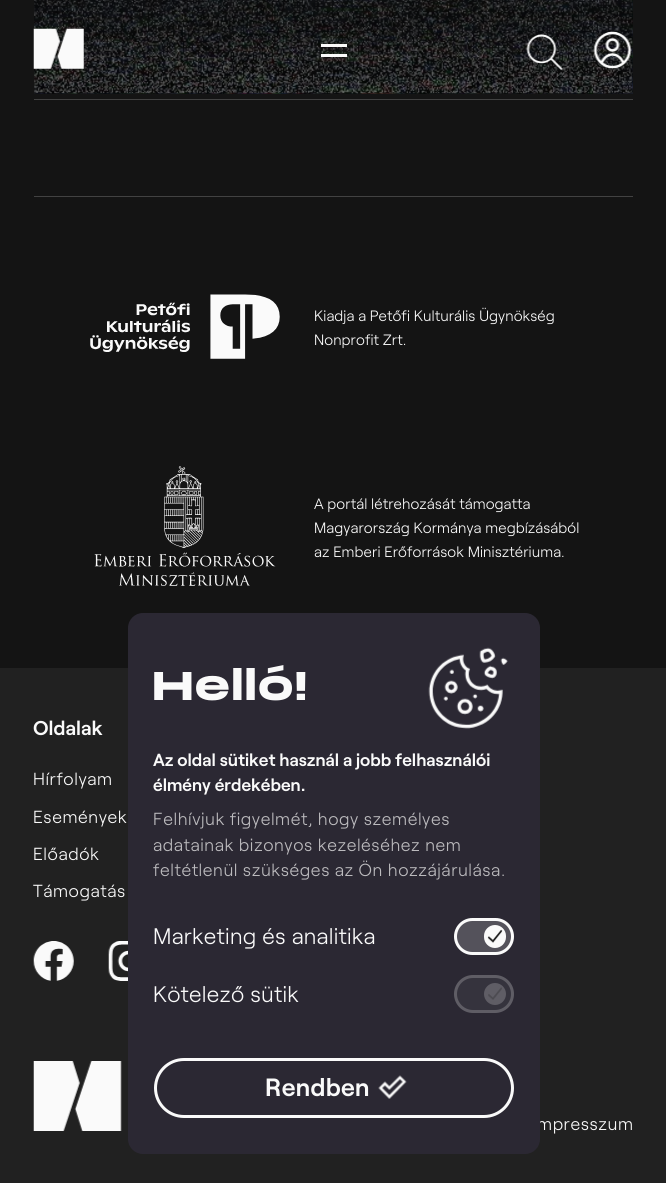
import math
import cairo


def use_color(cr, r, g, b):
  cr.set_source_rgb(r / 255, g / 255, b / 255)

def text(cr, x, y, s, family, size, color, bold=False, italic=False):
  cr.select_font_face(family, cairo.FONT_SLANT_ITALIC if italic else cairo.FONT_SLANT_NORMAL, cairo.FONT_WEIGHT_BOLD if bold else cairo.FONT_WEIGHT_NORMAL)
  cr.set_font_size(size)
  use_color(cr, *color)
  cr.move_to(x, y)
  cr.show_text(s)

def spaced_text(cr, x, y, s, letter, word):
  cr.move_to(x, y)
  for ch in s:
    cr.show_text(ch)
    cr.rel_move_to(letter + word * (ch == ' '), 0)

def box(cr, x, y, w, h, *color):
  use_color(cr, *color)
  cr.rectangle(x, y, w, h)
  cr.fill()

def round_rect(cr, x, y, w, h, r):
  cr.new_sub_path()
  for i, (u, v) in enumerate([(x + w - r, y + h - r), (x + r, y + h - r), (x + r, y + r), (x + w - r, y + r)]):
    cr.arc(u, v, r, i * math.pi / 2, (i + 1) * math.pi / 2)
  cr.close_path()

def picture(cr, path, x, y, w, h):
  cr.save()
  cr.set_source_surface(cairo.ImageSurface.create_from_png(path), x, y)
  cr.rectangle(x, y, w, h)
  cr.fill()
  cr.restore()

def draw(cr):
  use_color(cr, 20, 20, 20)
  cr.paint()
  picture(cr, "img_04.png", 34, 0, 599, 94)
  picture(cr, "img_05.png", 34, 0, 599, 94)
  gradient = cairo.LinearGradient(333, -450, 333, 100)
  gradient.add_color_stop_rgba(0, 0.078, 0.078, 0.078, 1)
  gradient.add_color_stop_rgba(1, 0.078, 0.078, 0.078, 0)
  cr.set_source(gradient)
  cr.rectangle(34, 0, 599, 80)
  cr.fill()
  box(cr, 34, 99, 599, 1, 66, 66, 66)
  picture(cr, "img_01.png", 33, 28, 51, 41)
  box(cr, 321, 44, 26, 3, 250, 250, 250)
  box(cr, 321, 54, 26, 3, 250, 250, 250)
  picture(cr, "img_02.png", 526, 34, 37, 36)
  picture(cr, "img_03.png", 593, 31, 39, 38)
  box(cr, 34, 196, 599, 1, 66, 66, 66)
  picture(cr, "img_06.png", 90, 294, 190, 65)
  picture(cr, "img_07.png", 94, 466, 182, 120)
  box(cr, 0, 668, 666, 515, 33, 33, 33)
  picture(cr, "img_08.png", 33, 941, 41, 40)
  picture(cr, "img_09.png", 108, 941, 20, 40)
  picture(cr, "img_10.png", 33, 1061, 89, 70)
  cr.select_font_face("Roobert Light")
  cr.set_font_size(15)
  use_color(cr, 250, 250, 250)
  spaced_text(cr, 314, 321, "Kiadja a Petőfi Kulturális Ügynökség", 0.05, 0)
  spaced_text(cr, 314, 345, "Nonprofit Zrt.", 0.05, 0)
  spaced_text(cr, 314, 509, "A portál létrehozását támogatta", 0.05, 0)
  spaced_text(cr, 314, 533, "Magyarország Kormánya megbízásából", 0.05, 0)
  spaced_text(cr, 314, 557, "az Emberi Erőforrások Minisztériuma.", 0.05, 0)
  text(cr, 33, 735, "Oldalak", "Roobert SemiBold", 20, (250, 250, 250))
  cr.select_font_face("Roobert Light")
  cr.set_font_size(17.5)
  spaced_text(cr, 33, 785, "Hírfolyam", 0.55, 0)
  spaced_text(cr, 33, 823, "Események", 0.55, 0)
  spaced_text(cr, 33, 860, "Előadók", 0.55, 0)
  spaced_text(cr, 33, 897, "Támogatás", 0.55, 0)
  spaced_text(cr, 537, 1130, "mpresszum", 0.55, 0)
  use_color(cr, 43, 40, 51)
  round_rect(cr, 128, 613, 412, 541, 15)
  cr.fill()
  cr.select_font_face("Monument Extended", cairo.FONT_SLANT_NORMAL, cairo.FONT_WEIGHT_BOLD)
  cr.set_font_size(40)
  use_color(cr, 250, 250, 250)
  spaced_text(cr, 153, 700, "Helló!", 2.5, 0)
  picture(cr, "img_11.png", 428, 647, 80, 82)
  text(cr, 153, 766, "Az oldal sütiket használ a jobb felhasználói", "Roobert SemiBold", 17.5, (250, 250, 250))
  text(cr, 153, 791, "élmény érdekében.", "Roobert SemiBold", 17.5, (250, 250, 250))
  cr.select_font_face("Roobert Light")
  use_color(cr, 188, 187, 190)
  spaced_text(cr, 153, 825, "Felhívjuk figyelmét, hogy személyes", 0.55, 0)
  spaced_text(cr, 153, 851, "adatainak bizonyos kezeléséhez nem", 0.55, 0)
  spaced_text(cr, 153, 876, "feltétlenül szükséges az Ön hozzájárulása.", 0.55, 0)
  cr.set_font_size(22.5)
  use_color(cr, 250, 250, 250)
  spaced_text(cr, 153, 944, "Marketing és analitika", 0.25, 0)
  use_color(cr, 84, 82, 91)
  round_rect(cr, 455.5, 919.5, 57, 34, 17)
  cr.fill_preserve()
  use_color(cr, 250, 250, 250)
  cr.set_line_width(3)
  cr.stroke()
  round_rect(cr, 484, 925, 22, 23, 11)
  cr.fill()
  picture(cr, "img_12.png", 487, 929, 16, 14)
  spaced_text(cr, 153, 1002, "Kötelező sütik", 0.25, 0)
  use_color(cr, 53, 51, 61)
  round_rect(cr, 455.5, 976.5, 57, 35, 17.5)
  cr.fill_preserve()
  use_color(cr, 95, 93, 101)
  cr.stroke()
  cr.arc(495, 994, 11, 0, 2 * math.pi)
  cr.fill()
  picture(cr, "img_13.png", 488, 987, 14, 13)
  round_rect(cr, 155.5, 1059.5, 357, 57, 28.5)
  use_color(cr, 250, 250, 250)
  cr.stroke()
  cr.select_font_face("Roobert SemiBold")
  cr.set_font_size(25)
  spaced_text(cr, 265, 1096, "Rendben", 0.25, 0)
  picture(cr, "img_14.png", 378, 1075, 29, 24)


surface = cairo.ImageSurface(cairo.FORMAT_RGB24, 666, 1183)
cr = cairo.Context(surface)
options = cairo.FontOptions()
options.set_hint_metrics(cairo.HINT_METRICS_OFF)
options.set_hint_style(cairo.HINT_STYLE_NONE)
cr.set_font_options(options)
cr.set_miter_limit(4)
draw(cr)
surface.write_to_png("out.png")
